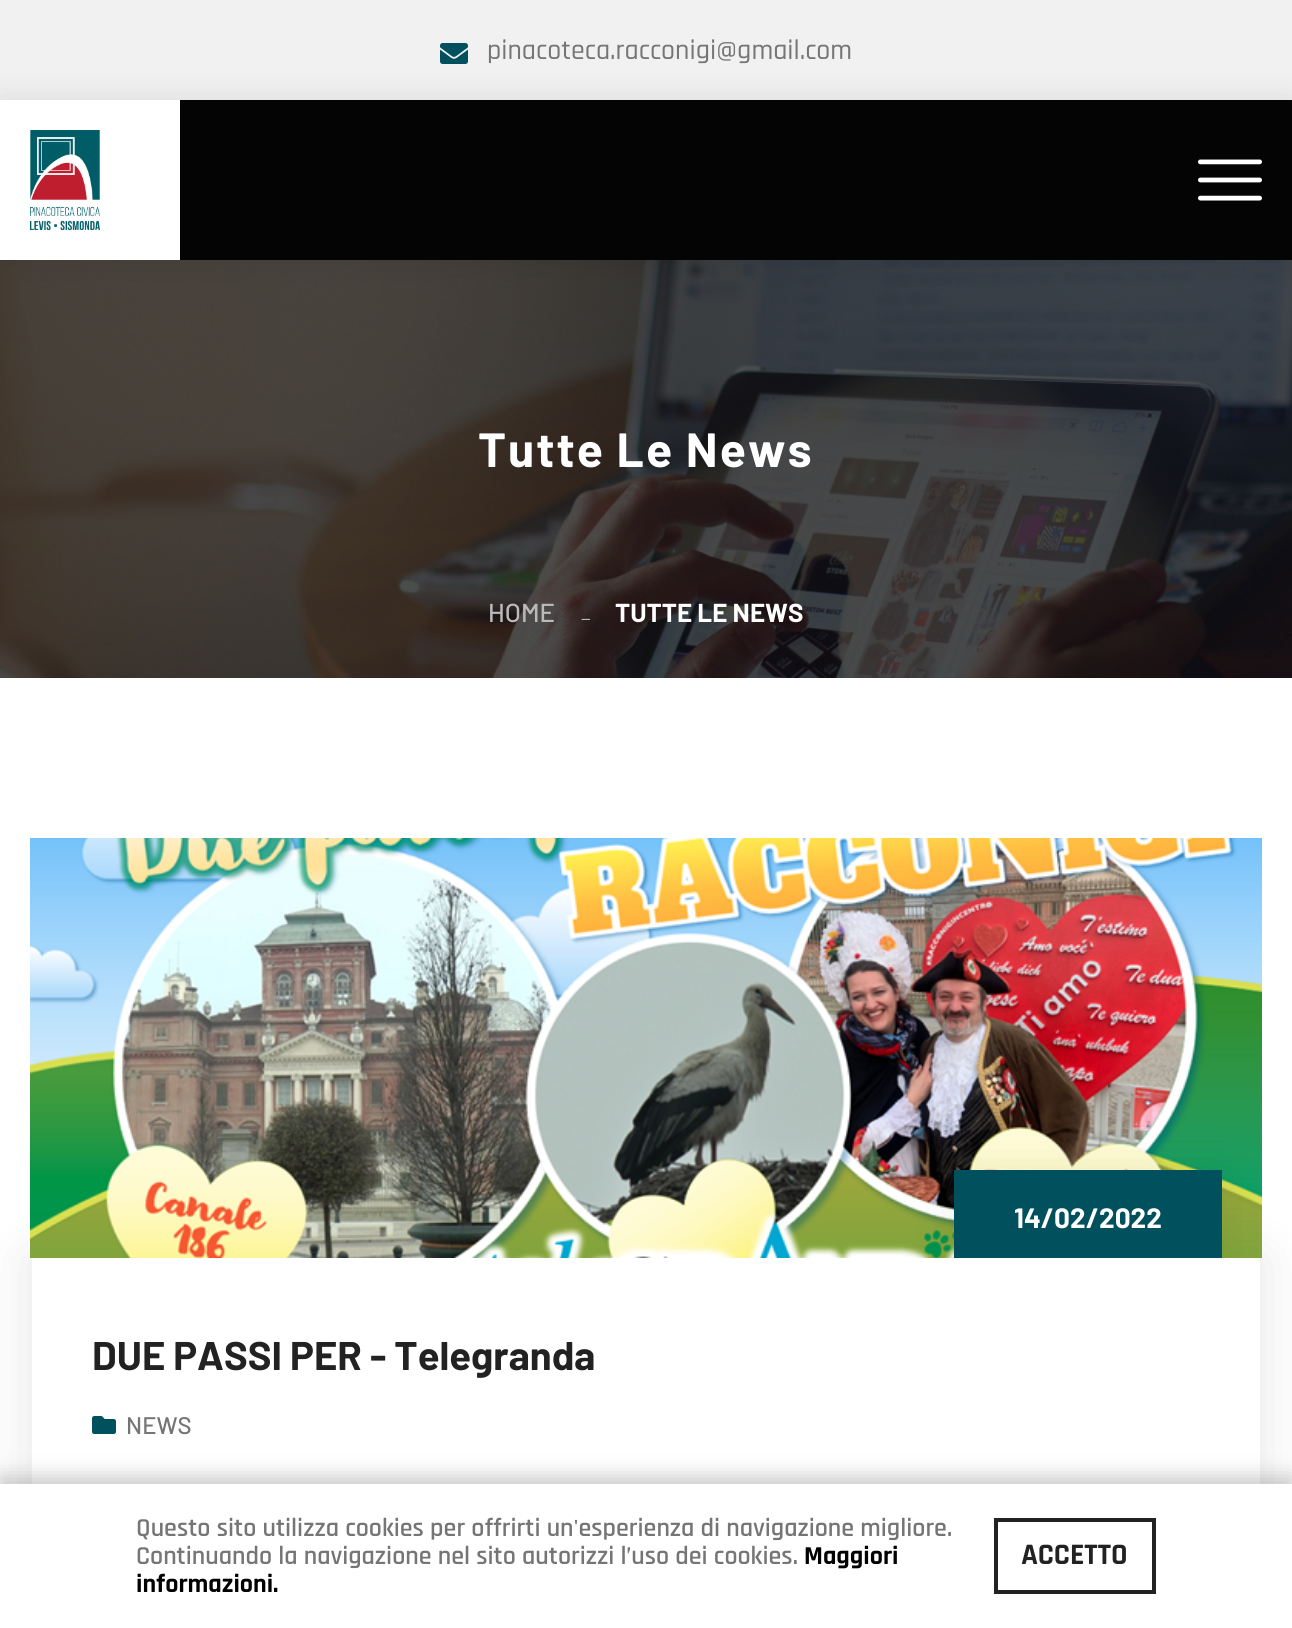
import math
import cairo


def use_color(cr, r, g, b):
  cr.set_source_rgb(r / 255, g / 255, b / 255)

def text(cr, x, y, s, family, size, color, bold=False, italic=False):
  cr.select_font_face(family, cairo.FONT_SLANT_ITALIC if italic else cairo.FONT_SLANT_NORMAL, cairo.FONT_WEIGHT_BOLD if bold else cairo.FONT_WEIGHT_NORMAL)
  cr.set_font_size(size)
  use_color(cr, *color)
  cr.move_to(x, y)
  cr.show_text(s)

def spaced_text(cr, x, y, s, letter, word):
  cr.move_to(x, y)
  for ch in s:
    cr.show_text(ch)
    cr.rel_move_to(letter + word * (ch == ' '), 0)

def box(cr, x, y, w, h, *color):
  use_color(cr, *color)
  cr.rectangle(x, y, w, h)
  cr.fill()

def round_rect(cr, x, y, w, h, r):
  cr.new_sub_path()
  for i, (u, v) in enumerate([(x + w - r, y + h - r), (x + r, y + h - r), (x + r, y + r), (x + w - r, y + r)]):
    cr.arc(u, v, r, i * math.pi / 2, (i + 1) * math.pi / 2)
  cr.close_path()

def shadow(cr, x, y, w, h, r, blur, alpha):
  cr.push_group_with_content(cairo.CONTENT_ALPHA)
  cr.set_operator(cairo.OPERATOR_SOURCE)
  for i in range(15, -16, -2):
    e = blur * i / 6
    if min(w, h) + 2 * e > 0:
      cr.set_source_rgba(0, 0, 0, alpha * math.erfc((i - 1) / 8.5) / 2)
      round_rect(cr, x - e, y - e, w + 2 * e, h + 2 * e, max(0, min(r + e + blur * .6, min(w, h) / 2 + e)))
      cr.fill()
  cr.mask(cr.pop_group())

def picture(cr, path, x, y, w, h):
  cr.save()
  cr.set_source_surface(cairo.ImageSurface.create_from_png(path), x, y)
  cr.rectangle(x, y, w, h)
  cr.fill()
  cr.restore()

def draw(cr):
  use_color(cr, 255, 255, 255)
  cr.paint()
  box(cr, 0, 0, 1292, 100, 241, 241, 241)
  picture(cr, "img_01.png", 440, 43, 28, 21)
  picture(cr, "img_04.png", 0, 260, 1292, 418)
  use_color(cr, 0, 0, 0)
  shadow(cr, 0, 100, 1292, 160, 0, 15, 0.1)
  box(cr, 180, 100, 1112, 160, 4, 4, 4)
  box(cr, 0, 100, 180, 160, 255, 255, 255)
  picture(cr, "img_02.png", 30, 130, 70, 100)
  picture(cr, "img_03.png", 1198, 159, 64, 42)
  cr.save()
  cr.set_fill_rule(cairo.FILL_RULE_EVEN_ODD)
  cr.new_path()
  cr.move_to(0, 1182)
  cr.line_to(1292, 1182)
  cr.line_to(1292, 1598)
  cr.line_to(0, 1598)
  cr.close_path()
  cr.move_to(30, 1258)
  cr.line_to(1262, 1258)
  cr.line_to(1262, 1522)
  cr.line_to(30, 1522)
  cr.close_path()
  cr.clip()
  use_color(cr, 0, 0, 0)
  shadow(cr, 30, 1258, 1232, 264, 0, 25, 0.1)
  cr.restore()
  picture(cr, "img_05.png", 30, 838, 1232, 420)
  use_color(cr, 242, 242, 242)
  cr.new_path()
  cr.move_to(1262, 1258)
  cr.line_to(1262, 1522)
  cr.line_to(1260, 1520)
  cr.line_to(1260, 1258)
  cr.close_path()
  cr.fill()
  cr.save()
  cr.rectangle(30, 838, 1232, 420)
  cr.clip()
  use_color(cr, 0, 0, 0)
  shadow(cr, 954, 1170, 268, 88, 0, 25, 0.07)
  cr.restore()
  box(cr, 954, 1170, 268, 88, 1, 80, 93)
  cr.set_source_rgba(0, 0, 0, 0.05)
  cr.new_path()
  cr.move_to(30, 1522)
  cr.line_to(30, 1258)
  cr.line_to(32, 1258)
  cr.line_to(32, 1520)
  cr.close_path()
  cr.fill()
  picture(cr, "img_06.png", 92, 1416, 24, 18)
  use_color(cr, 0, 0, 0)
  shadow(cr, 0, 1476, 1292, 144, 0, 10, 0.2)
  box(cr, 0, 1484, 1292, 144, 255, 255, 255)
  cr.rectangle(996, 1520, 158, 72)
  use_color(cr, 34, 34, 34)
  cr.set_line_width(4)
  cr.stroke()
  text(cr, 487, 59, "pinacoteca.racconigi@gmail.com", "Rajdhani Medium", 28, (117, 117, 117))
  cr.select_font_face("Barlow", cairo.FONT_SLANT_NORMAL, cairo.FONT_WEIGHT_BOLD)
  cr.set_font_size(48)
  use_color(cr, 255, 255, 255)
  spaced_text(cr, 478, 467, "Tutte Le News", 2, 0)
  text(cr, 488, 622, "HOME", "Barlow Medium", 26, (186, 186, 186))
  text(cr, 581, 620, "_", "Barlow", 20, (186, 186, 186))
  text(cr, 615, 622, "TUTTE LE NEWS", "Barlow", 26, (255, 255, 255), bold=True)
  text(cr, 1014, 1228, "14/02/2022", "Barlow", 28, (255, 255, 255), bold=True)
  text(cr, 92, 1370, "DUE PASSI PER - Telegranda", "Barlow", 40, (34, 34, 34), bold=True)
  text(cr, 126, 1434, "NEWS", "Barlow Medium", 24, (117, 117, 117))
  text(cr, 136, 1536, "Questo sito utilizza cookies per offrirti un'esperienza di navigazione migliore.", "Rajdhani SemiBold", 26, (117, 117, 117))
  text(cr, 136, 1564, "Continuando la navigazione nel sito autorizzi l’uso dei cookies.", "Rajdhani SemiBold", 26, (117, 117, 117))
  text(cr, 804, 1564, "Maggiori", "Rajdhani", 26, (0, 0, 0), bold=True)
  text(cr, 136, 1592, "informazioni.", "Rajdhani", 26, (0, 0, 0), bold=True)
  text(cr, 1021, 1564, "ACCETTO", "Rajdhani", 30, (34, 34, 34), bold=True)


surface = cairo.ImageSurface(cairo.FORMAT_RGB24, 1292, 1628)
cr = cairo.Context(surface)
options = cairo.FontOptions()
options.set_hint_metrics(cairo.HINT_METRICS_OFF)
options.set_hint_style(cairo.HINT_STYLE_NONE)
cr.set_font_options(options)
cr.set_miter_limit(4)
draw(cr)
surface.write_to_png("out.png")
